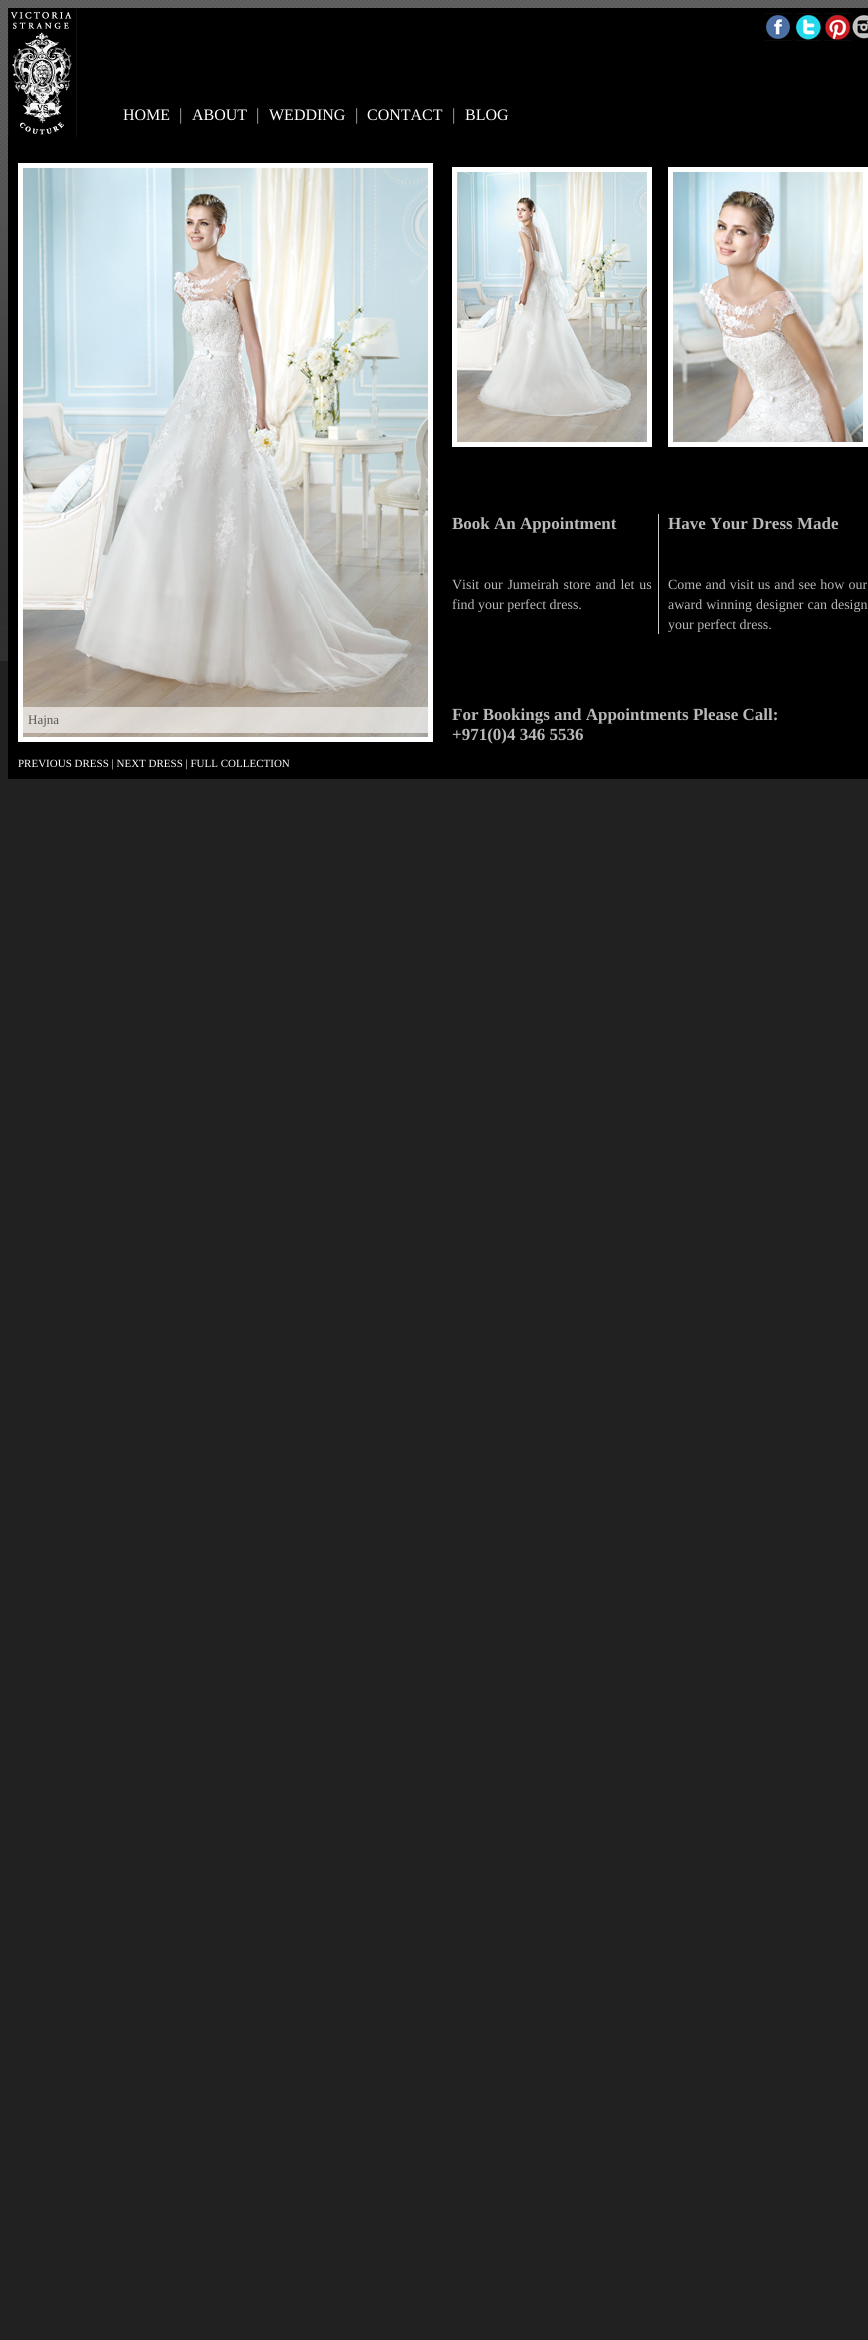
import math
import cairo


def use_color(cr, r, g, b):
  cr.set_source_rgb(r / 255, g / 255, b / 255)

def text(cr, x, y, s, family, size, color, bold=False, italic=False):
  cr.select_font_face(family, cairo.FONT_SLANT_ITALIC if italic else cairo.FONT_SLANT_NORMAL, cairo.FONT_WEIGHT_BOLD if bold else cairo.FONT_WEIGHT_NORMAL)
  cr.set_font_size(size)
  use_color(cr, *color)
  cr.move_to(x, y)
  cr.show_text(s)

def spaced_text(cr, x, y, s, letter, word):
  cr.move_to(x, y)
  for ch in s:
    cr.show_text(ch)
    cr.rel_move_to(letter + word * (ch == ' '), 0)

def box(cr, x, y, w, h, *color):
  use_color(cr, *color)
  cr.rectangle(x, y, w, h)
  cr.fill()

def picture(cr, path, x, y, w, h):
  cr.save()
  cr.set_source_surface(cairo.ImageSurface.create_from_png(path), x, y)
  cr.rectangle(x, y, w, h)
  cr.fill()
  cr.restore()

def draw(cr):
  use_color(cr, 33, 33, 33)
  cr.paint()
  picture(cr, "img_01.png", 0, 0, 868, 661)
  box(cr, 8, 8, 860, 771, 0, 0, 0)
  picture(cr, "img_02.png", 8, 9, 69, 128)
  picture(cr, "img_03.png", 765, 13, 26, 28)
  picture(cr, "img_04.png", 795, 13, 26, 28)
  picture(cr, "img_05.png", 825, 13, 26, 28)
  picture(cr, "img_06.png", 852, 15, 16, 24)
  picture(cr, "img_07.png", 18, 163, 415, 579)
  cr.set_source_rgba(1, 1, 1, 0.6)
  cr.rectangle(23, 707, 405, 26)
  cr.fill()
  picture(cr, "img_08.png", 452, 167, 200, 280)
  picture(cr, "img_09.png", 668, 167, 200, 280)
  box(cr, 658, 514, 1, 120, 202, 202, 202)
  text(cr, 123, 120, "HOME", "Liberation Serif", 16, (255, 255, 255))
  text(cr, 179, 120, "|", "Liberation Serif", 17, (185, 185, 185))
  text(cr, 192, 120, "ABOUT", "Liberation Serif", 16, (255, 255, 255))
  text(cr, 256, 120, "|", "Liberation Serif", 17, (185, 185, 185))
  text(cr, 269, 120, "WEDDING", "Liberation Serif", 16, (255, 255, 255))
  text(cr, 355, 120, "|", "Liberation Serif", 17, (185, 185, 185))
  text(cr, 367, 120, "CONTACT", "Liberation Serif", 16, (255, 255, 255))
  text(cr, 452, 120, "|", "Liberation Serif", 17, (185, 185, 185))
  text(cr, 465, 120, "BLOG", "Liberation Serif", 16, (255, 255, 255))
  text(cr, 28, 724, "Hajna", "Liberation Serif", 13, (90, 88, 85))
  text(cr, 18, 767, "PREVIOUS DRESS | NEXT DRESS | FULL COLLECTION", "Liberation Serif", 11, (255, 255, 255))
  text(cr, 452, 529, "Book An Appointment", "Liberation Serif", 17, (185, 185, 185), bold=True)
  cr.select_font_face("Liberation Serif")
  cr.set_font_size(14)
  spaced_text(cr, 452, 589, "Visit our Jumeirah store and let us", 0, 1.25)
  text(cr, 452, 609, "find your perfect dress.", "Liberation Serif", 14, (185, 185, 185))
  text(cr, 668, 529, "Have Your Dress Made", "Liberation Serif", 17, (185, 185, 185), bold=True)
  cr.select_font_face("Liberation Serif")
  cr.set_font_size(14)
  spaced_text(cr, 668, 589, "Come and visit us and see how our", 0, 0.5)
  spaced_text(cr, 668, 609, "award winning designer can design", 0, 0.5)
  text(cr, 668, 629, "your perfect dress.", "Liberation Serif", 14, (185, 185, 185))
  text(cr, 452, 720, "For Bookings and Appointments Please Call:", "Liberation Serif", 17, (185, 185, 185), bold=True)
  text(cr, 452, 740, "+971(0)4 346 5536", "Liberation Serif", 17, (185, 185, 185), bold=True)


surface = cairo.ImageSurface(cairo.FORMAT_RGB24, 868, 2340)
cr = cairo.Context(surface)
options = cairo.FontOptions()
options.set_hint_metrics(cairo.HINT_METRICS_OFF)
options.set_hint_style(cairo.HINT_STYLE_NONE)
cr.set_font_options(options)
cr.set_miter_limit(4)
draw(cr)
surface.write_to_png("out.png")
